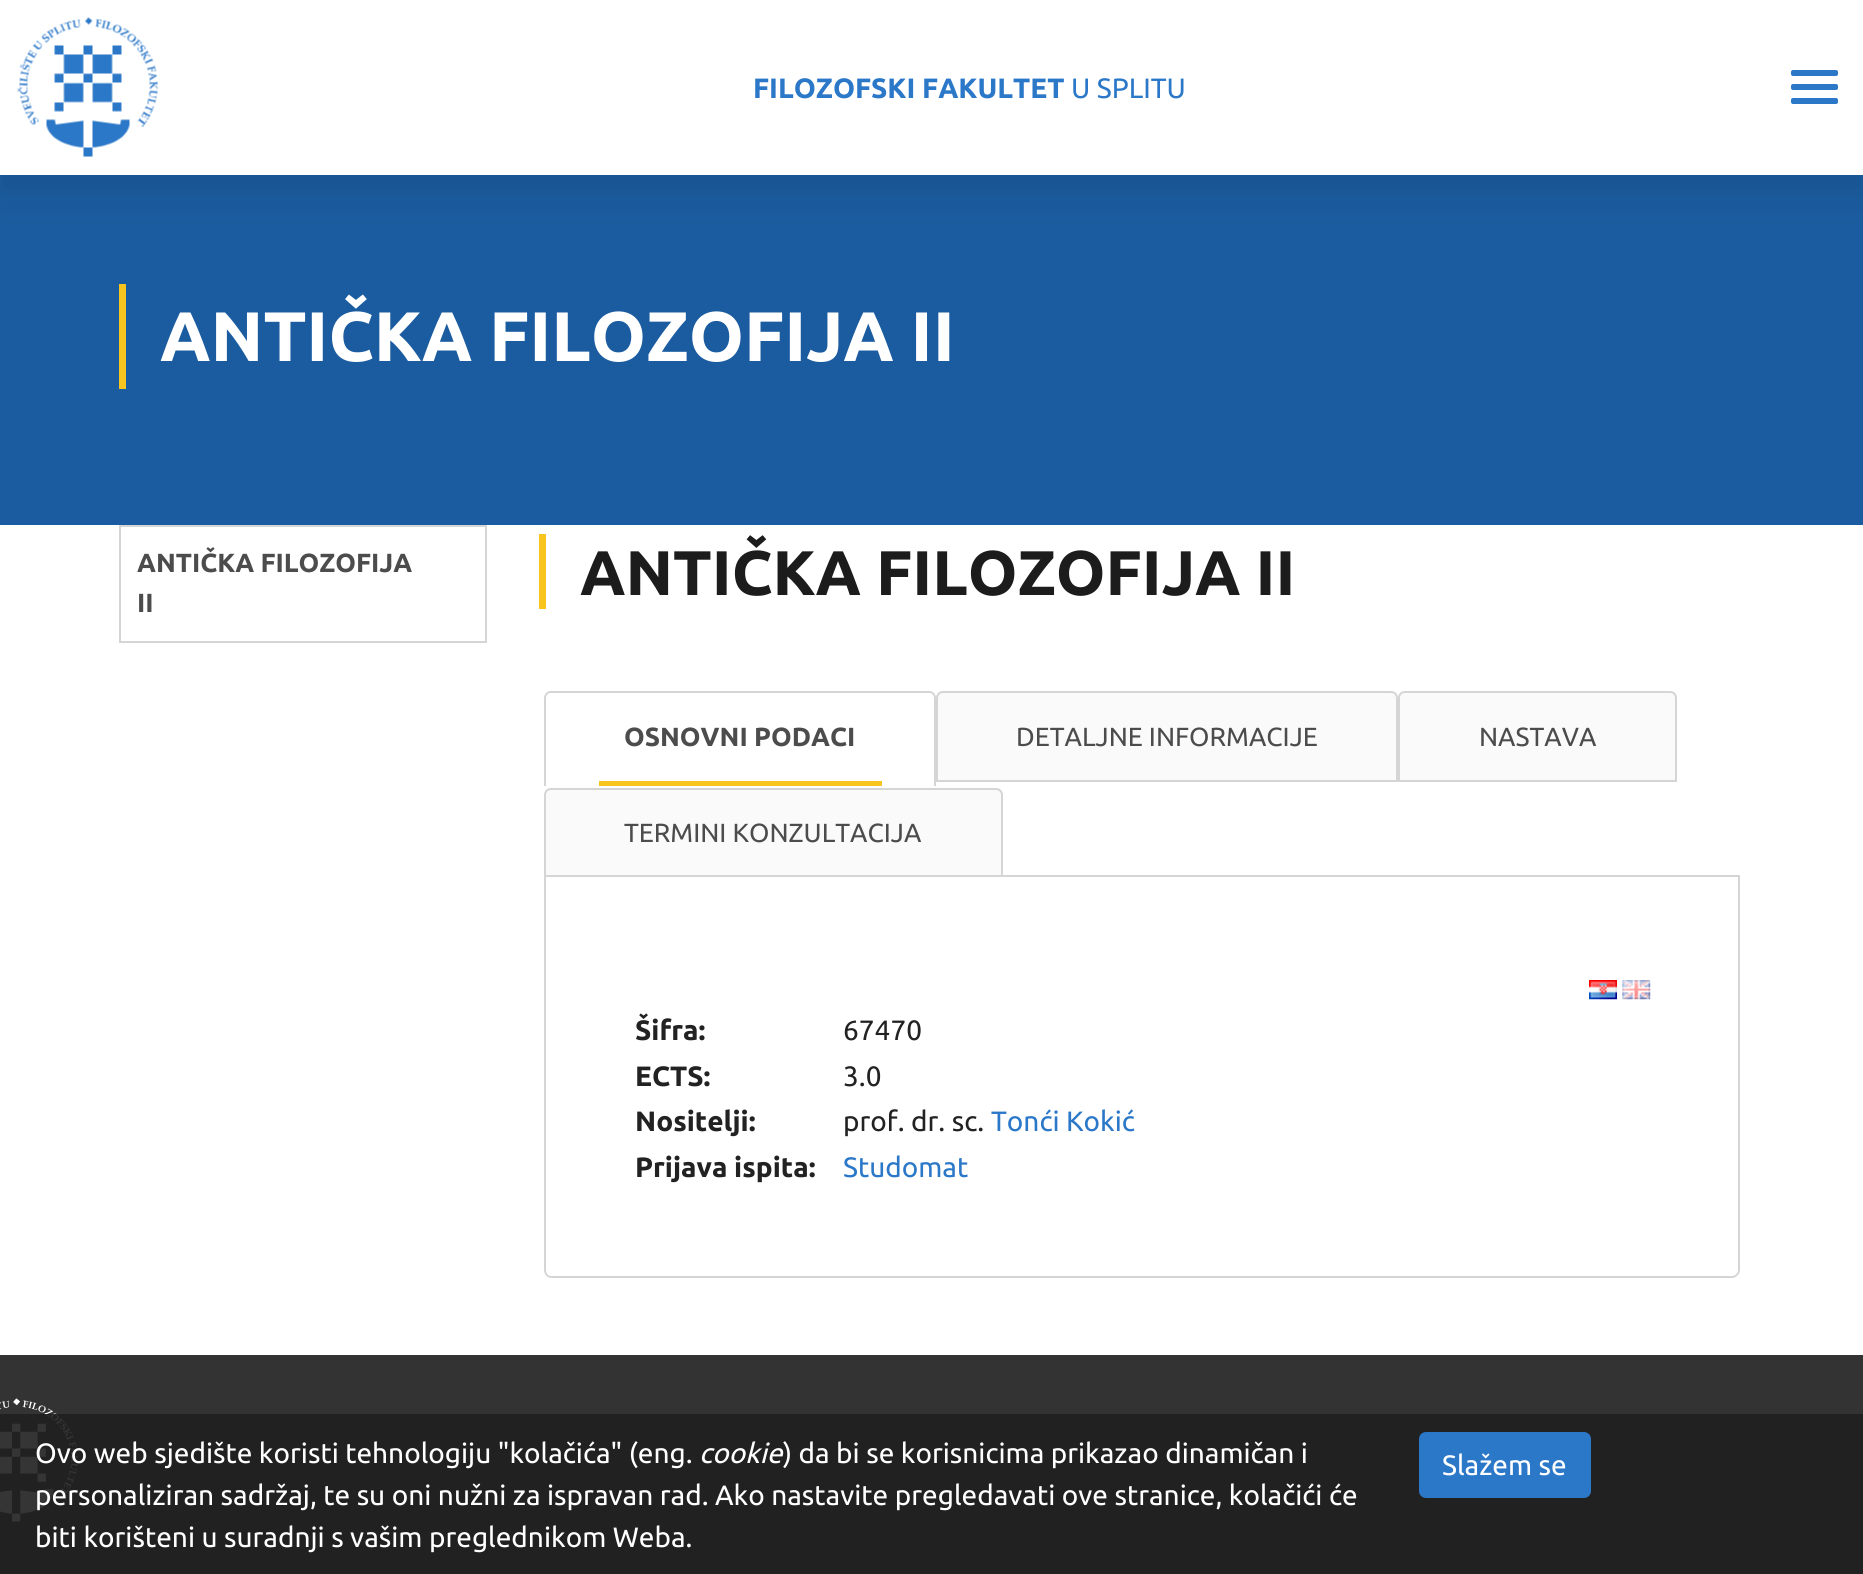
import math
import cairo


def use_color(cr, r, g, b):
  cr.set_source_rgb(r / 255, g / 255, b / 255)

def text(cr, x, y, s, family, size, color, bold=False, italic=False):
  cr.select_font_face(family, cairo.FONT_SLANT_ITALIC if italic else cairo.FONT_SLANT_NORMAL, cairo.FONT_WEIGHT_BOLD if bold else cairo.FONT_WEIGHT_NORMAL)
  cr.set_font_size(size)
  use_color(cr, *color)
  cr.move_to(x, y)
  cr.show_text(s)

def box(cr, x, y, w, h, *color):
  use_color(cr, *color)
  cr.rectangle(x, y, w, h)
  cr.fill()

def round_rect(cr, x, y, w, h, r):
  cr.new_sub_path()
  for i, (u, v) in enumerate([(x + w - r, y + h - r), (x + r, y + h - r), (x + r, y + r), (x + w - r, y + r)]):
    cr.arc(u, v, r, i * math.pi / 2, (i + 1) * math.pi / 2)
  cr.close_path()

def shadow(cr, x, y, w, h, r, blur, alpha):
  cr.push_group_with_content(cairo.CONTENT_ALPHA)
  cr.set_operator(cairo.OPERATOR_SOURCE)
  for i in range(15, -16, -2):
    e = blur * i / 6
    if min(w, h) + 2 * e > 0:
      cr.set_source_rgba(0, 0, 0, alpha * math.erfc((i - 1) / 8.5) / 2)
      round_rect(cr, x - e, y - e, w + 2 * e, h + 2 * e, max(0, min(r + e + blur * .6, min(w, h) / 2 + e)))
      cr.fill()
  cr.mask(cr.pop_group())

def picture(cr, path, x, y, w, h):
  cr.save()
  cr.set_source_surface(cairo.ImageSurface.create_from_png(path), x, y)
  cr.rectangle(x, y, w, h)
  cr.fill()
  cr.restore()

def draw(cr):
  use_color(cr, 255, 255, 255)
  cr.paint()
  box(cr, 0, 175, 1863, 350, 27, 92, 160)
  use_color(cr, 0, 0, 0)
  shadow(cr, 0, 18, 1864, 175, 0, 17.5, 0.1)
  box(cr, 0, 0, 1863, 175, 255, 255, 255)
  picture(cr, "img_01.png", 17, 17, 141, 140)
  use_color(cr, 43, 119, 200)
  round_rect(cr, 1791, 70, 47, 6, 2)
  cr.fill()
  round_rect(cr, 1791, 84, 47, 6, 2)
  cr.fill()
  round_rect(cr, 1791, 98, 47, 6, 2)
  cr.fill()
  box(cr, 119, 284, 7, 105, 248, 197, 30)
  box(cr, 485, 525, 2, 117, 213, 213, 213)
  box(cr, 119, 641, 368, 2, 213, 213, 213)
  box(cr, 119, 525, 2, 117, 213, 213, 213)
  box(cr, 121, 525, 364, 2, 213, 213, 213)
  box(cr, 539, 534, 7, 75, 248, 197, 30)
  box(cr, 1003, 875, 737, 2, 213, 213, 213)
  cr.set_fill_rule(cairo.FILL_RULE_EVEN_ODD)
  cr.new_path()
  cr.move_to(551, 691)
  cr.line_to(929, 691)
  cr.curve_to(933, 691, 936, 694, 936, 698)
  cr.line_to(936, 786)
  cr.line_to(544, 786)
  cr.line_to(544, 698)
  cr.curve_to(544, 694, 547, 691, 551, 691)
  cr.close_path()
  cr.move_to(551, 693)
  cr.line_to(929, 693)
  cr.curve_to(932, 693, 934, 695, 934, 698)
  cr.line_to(934, 786)
  cr.line_to(546, 786)
  cr.line_to(546, 698)
  cr.curve_to(546, 695, 548, 693, 551, 693)
  cr.close_path()
  cr.fill()
  box(cr, 599, 781, 283, 5, 248, 197, 30)
  use_color(cr, 250, 250, 250)
  cr.new_path()
  cr.move_to(943, 692)
  cr.line_to(1391, 692)
  cr.curve_to(1394.5, 692, 1397, 694.5, 1397, 698)
  cr.line_to(1397, 781)
  cr.line_to(937, 781)
  cr.line_to(937, 698)
  cr.curve_to(937, 694.5, 939.5, 692, 943, 692)
  cr.close_path()
  cr.fill_preserve()
  use_color(cr, 213, 213, 213)
  cr.stroke()
  use_color(cr, 250, 250, 250)
  cr.new_path()
  cr.move_to(1405, 692)
  cr.line_to(1670, 692)
  cr.curve_to(1673.5, 692, 1676, 694.5, 1676, 698)
  cr.line_to(1676, 781)
  cr.line_to(1399, 781)
  cr.line_to(1399, 698)
  cr.curve_to(1399, 694.5, 1401.5, 692, 1405, 692)
  cr.close_path()
  cr.fill_preserve()
  use_color(cr, 213, 213, 213)
  cr.stroke()
  use_color(cr, 250, 250, 250)
  cr.new_path()
  cr.move_to(551, 789)
  cr.line_to(996, 789)
  cr.curve_to(999.5, 789, 1002, 791.5, 1002, 795)
  cr.line_to(1002, 876)
  cr.line_to(545, 876)
  cr.line_to(545, 795)
  cr.curve_to(545, 791.5, 547.5, 789, 551, 789)
  cr.close_path()
  cr.fill_preserve()
  use_color(cr, 213, 213, 213)
  cr.stroke()
  cr.new_path()
  cr.move_to(544, 877)
  cr.line_to(1740, 877)
  cr.line_to(1740, 1270)
  cr.curve_to(1740, 1274, 1736, 1278, 1732, 1278)
  cr.line_to(551, 1278)
  cr.curve_to(547, 1278, 544, 1274, 544, 1270)
  cr.close_path()
  cr.move_to(546, 877)
  cr.line_to(1738, 877)
  cr.line_to(1738, 1270)
  cr.curve_to(1738, 1273, 1735, 1276, 1732, 1276)
  cr.line_to(551, 1276)
  cr.curve_to(548, 1276, 546, 1273, 546, 1270)
  cr.close_path()
  cr.fill()
  picture(cr, "img_02.png", 1589, 980, 28, 20)
  picture(cr, "img_03.png", 1622, 980, 29, 20)
  box(cr, 0, 1355, 1863, 219, 51, 51, 51)
  picture(cr, "img_04.png", 0, 1398, 78, 124)
  cr.set_source_rgba(0.125, 0.125, 0.125, 0.9)
  cr.rectangle(0, 1414, 1863, 160)
  cr.fill()
  use_color(cr, 43, 119, 200)
  round_rect(cr, 1420, 1433, 170, 64, 6)
  cr.fill_preserve()
  cr.stroke()
  text(cr, 753, 98, "FILOZOFSKI FAKULTET", "Ubuntu", 28, (43, 119, 200), bold=True)
  text(cr, 1071, 98, "U SPLITU", "Ubuntu", 28, (43, 119, 200))
  text(cr, 160, 361, "ANTIČKA FILOZOFIJA II", "Ubuntu", 70, (255, 255, 255), bold=True)
  text(cr, 137, 572, "ANTIČKA FILOZOFIJA", "Ubuntu", 26.25, (76, 76, 76), bold=True)
  text(cr, 137, 612, "II", "Ubuntu", 26.25, (76, 76, 76), bold=True)
  text(cr, 580, 595, "ANTIČKA FILOZOFIJA II", "Ubuntu", 63, (28, 28, 28), bold=True)
  text(cr, 624, 746, "OSNOVNI PODACI", "Ubuntu", 26.25, (76, 76, 76), bold=True)
  text(cr, 1016, 746, "DETALJNE INFORMACIJE", "Ubuntu", 26.25, (76, 76, 76))
  text(cr, 1479, 746, "NASTAVA", "Ubuntu", 26.25, (76, 76, 76))
  text(cr, 624, 842, "TERMINI KONZULTACIJA", "Ubuntu", 26.25, (76, 76, 76))
  text(cr, 635, 1040, "Šifra:", "Ubuntu", 28, (34, 34, 34), bold=True)
  text(cr, 843, 1040, "67470", "Ubuntu", 28, (34, 34, 34))
  text(cr, 635, 1086, "ECTS:", "Ubuntu", 28, (34, 34, 34), bold=True)
  text(cr, 843, 1086, "3.0", "Ubuntu", 28, (34, 34, 34))
  text(cr, 635, 1131, "Nositelji:", "Ubuntu", 28, (34, 34, 34), bold=True)
  text(cr, 843, 1131, "prof. dr. sc.", "Ubuntu", 28, (34, 34, 34))
  text(cr, 991, 1131, "Tonći Kokić", "Ubuntu", 28, (43, 119, 200))
  text(cr, 635, 1177, "Prijava ispita:", "Ubuntu", 28, (34, 34, 34), bold=True)
  text(cr, 843, 1177, "Studomat", "Ubuntu", 28, (43, 119, 200))
  text(cr, 35, 1463, "Ovo web sjedište koristi tehnologiju \"kolačića\" (eng.", "Ubuntu", 28, (255, 255, 255))
  text(cr, 699, 1463, "cookie", "Ubuntu", 28, (255, 255, 255), italic=True)
  text(cr, 783, 1463, ") da bi se korisnicima prikazao dinamičan i", "Ubuntu", 28, (255, 255, 255))
  text(cr, 35, 1505, "personaliziran sadržaj, te su oni nužni za ispravan rad. Ako nastavite pregledavati ove stranice, kolačići će", "Ubuntu", 28, (255, 255, 255))
  text(cr, 35, 1547, "biti korišteni u suradnji s vašim preglednikom Weba.", "Ubuntu", 28, (255, 255, 255))
  text(cr, 1442, 1475, "Slažem se", "Ubuntu", 28, (255, 255, 255))


surface = cairo.ImageSurface(cairo.FORMAT_RGB24, 1863, 1574)
cr = cairo.Context(surface)
options = cairo.FontOptions()
options.set_hint_metrics(cairo.HINT_METRICS_OFF)
options.set_hint_style(cairo.HINT_STYLE_NONE)
cr.set_font_options(options)
cr.set_miter_limit(4)
draw(cr)
surface.write_to_png("out.png")
